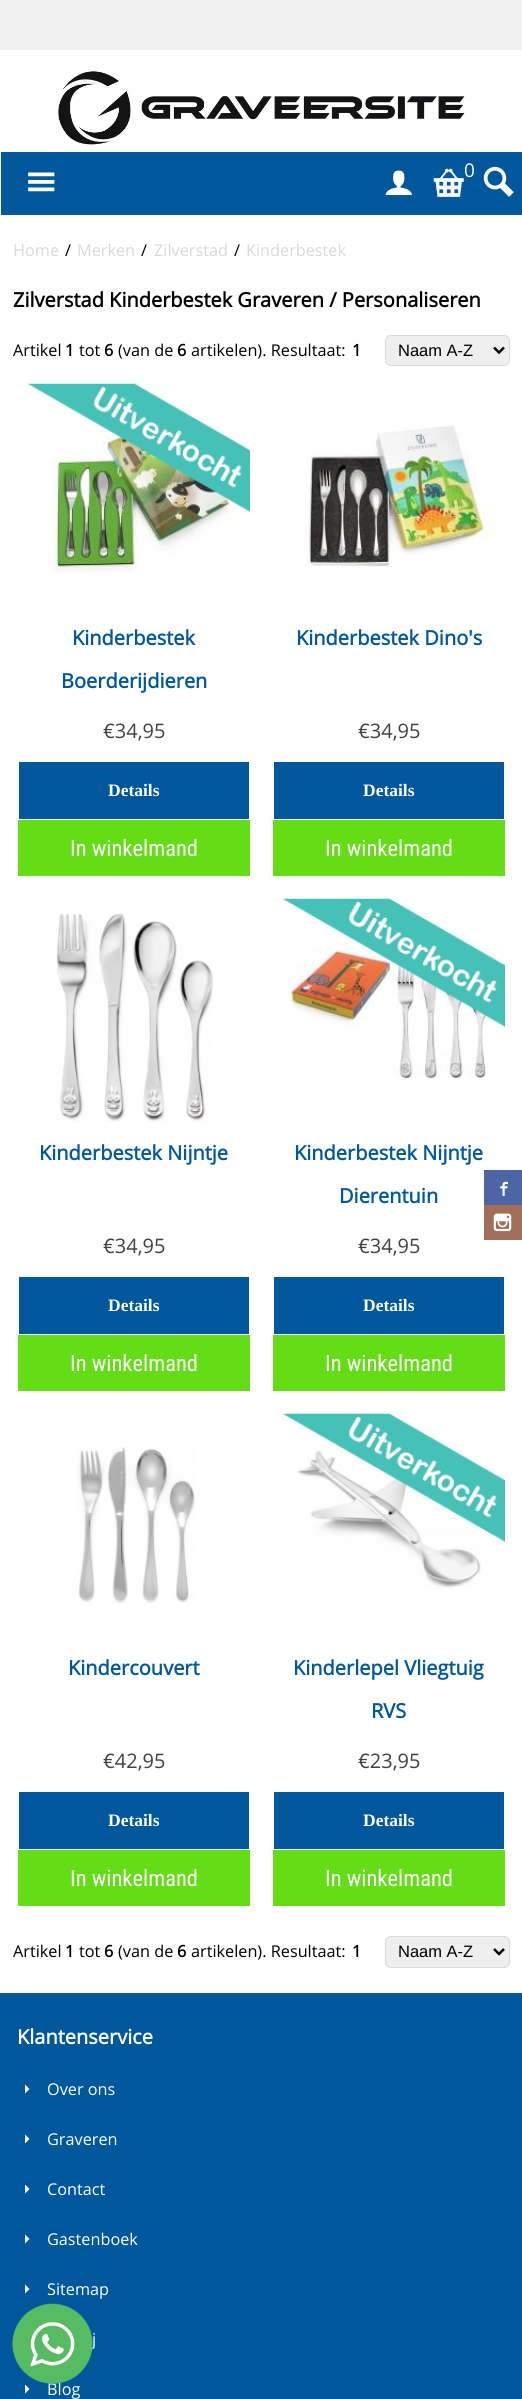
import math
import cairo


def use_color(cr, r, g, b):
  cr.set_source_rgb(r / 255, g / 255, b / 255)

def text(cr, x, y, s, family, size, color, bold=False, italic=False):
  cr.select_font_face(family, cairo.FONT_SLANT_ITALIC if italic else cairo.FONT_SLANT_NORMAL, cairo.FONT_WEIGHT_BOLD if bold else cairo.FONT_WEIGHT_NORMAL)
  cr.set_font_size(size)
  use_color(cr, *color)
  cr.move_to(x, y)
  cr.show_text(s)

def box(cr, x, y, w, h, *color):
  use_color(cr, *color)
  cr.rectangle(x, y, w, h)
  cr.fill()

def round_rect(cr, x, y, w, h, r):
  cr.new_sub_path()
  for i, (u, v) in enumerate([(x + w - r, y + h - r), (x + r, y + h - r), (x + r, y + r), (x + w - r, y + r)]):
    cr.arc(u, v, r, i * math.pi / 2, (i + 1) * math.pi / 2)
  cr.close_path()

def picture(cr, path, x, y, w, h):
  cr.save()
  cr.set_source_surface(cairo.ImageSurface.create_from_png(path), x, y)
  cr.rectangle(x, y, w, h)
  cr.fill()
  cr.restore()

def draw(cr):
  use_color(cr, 240, 240, 240)
  cr.paint()
  box(cr, 0, 50, 522, 101, 255, 255, 255)
  picture(cr, "img_01.png", 58, 71, 407, 74)
  use_color(cr, 1, 87, 155)
  cr.rectangle(0.5, 151.5, 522, 64)
  cr.fill_preserve()
  use_color(cr, 255, 255, 255)
  cr.set_line_width(1)
  cr.stroke()
  picture(cr, "img_02.png", 28, 172, 27, 20)
  picture(cr, "img_03.png", 385, 170, 27, 25)
  picture(cr, "img_04.png", 433, 168, 31, 29)
  picture(cr, "img_05.png", 483, 166, 31, 31)
  box(cr, 0, 216, 522, 1777, 255, 255, 255)
  use_color(cr, 239, 239, 239)
  round_rect(cr, 385.5, 335.5, 124, 30, 5.5)
  cr.fill_preserve()
  use_color(cr, 217, 217, 217)
  cr.stroke()
  cr.new_path()
  cr.move_to(494, 347.5)
  cr.line_to(499, 352.5)
  cr.line_to(504, 347.5)
  use_color(cr, 0, 0, 0)
  cr.set_line_width(2.5)
  cr.stroke()
  picture(cr, "img_07.png", 51, 405, 188, 168)
  picture(cr, "img_06.png", 28, 383, 222, 129)
  box(cr, 19, 762, 230, 57, 1, 87, 155)
  box(cr, 18, 820, 232, 56, 100, 221, 23)
  picture(cr, "img_08.png", 307, 424, 188, 143)
  box(cr, 274, 762, 230, 57, 1, 87, 155)
  box(cr, 273, 820, 232, 56, 100, 221, 23)
  picture(cr, "img_09.png", 56, 913, 157, 209)
  box(cr, 19, 1277, 230, 57, 1, 87, 155)
  box(cr, 18, 1335, 232, 56, 100, 221, 23)
  picture(cr, "img_11.png", 289, 949, 204, 131)
  picture(cr, "img_10.png", 283, 898, 222, 129)
  box(cr, 274, 1277, 230, 57, 1, 87, 155)
  box(cr, 273, 1335, 232, 56, 100, 221, 23)
  picture(cr, "img_12.png", 77, 1446, 119, 158)
  box(cr, 19, 1792, 230, 57, 1, 87, 155)
  box(cr, 18, 1850, 232, 56, 100, 221, 23)
  picture(cr, "img_14.png", 297, 1450, 184, 139)
  picture(cr, "img_13.png", 283, 1413, 222, 129)
  box(cr, 274, 1792, 230, 57, 1, 87, 155)
  box(cr, 273, 1850, 232, 56, 100, 221, 23)
  use_color(cr, 239, 239, 239)
  round_rect(cr, 385.5, 1936.5, 124, 31, 5.5)
  cr.fill_preserve()
  use_color(cr, 217, 217, 217)
  cr.set_line_width(1)
  cr.stroke()
  cr.new_path()
  cr.move_to(494, 1949)
  cr.line_to(499, 1954)
  cr.line_to(504, 1949)
  use_color(cr, 0, 0, 0)
  cr.set_line_width(2.5)
  cr.stroke()
  box(cr, 484, 1170, 38, 35, 76, 101, 165)
  picture(cr, "img_15.png", 500, 1181, 8, 16)
  box(cr, 484, 1205, 38, 35, 162, 110, 89)
  picture(cr, "img_16.png", 493, 1213, 19, 19)
  box(cr, 0, 1993, 522, 406, 1, 87, 155)
  use_color(cr, 255, 255, 255)
  cr.new_path()
  cr.move_to(25, 2093.5)
  cr.line_to(29.5, 2089)
  cr.line_to(25, 2084.5)
  cr.close_path()
  cr.fill()
  cr.new_path()
  cr.move_to(25, 2143.5)
  cr.line_to(29.5, 2139)
  cr.line_to(25, 2134.5)
  cr.close_path()
  cr.fill()
  cr.new_path()
  cr.move_to(25, 2193.5)
  cr.line_to(29.5, 2189)
  cr.line_to(25, 2184.5)
  cr.close_path()
  cr.fill()
  cr.new_path()
  cr.move_to(25, 2243.5)
  cr.line_to(29.5, 2239)
  cr.line_to(25, 2234.5)
  cr.close_path()
  cr.fill()
  cr.new_path()
  cr.move_to(25, 2293.5)
  cr.line_to(29.5, 2289)
  cr.line_to(25, 2284.5)
  cr.close_path()
  cr.fill()
  cr.new_path()
  cr.move_to(25, 2393.5)
  cr.line_to(29.5, 2389)
  cr.line_to(25, 2384.5)
  cr.close_path()
  cr.fill()
  text(cr, 464, 177, "0", "Open Sans", 19, (255, 255, 255))
  text(cr, 13, 256, "Home", "Open Sans", 16.25, (217, 217, 217))
  text(cr, 65, 256, "/", "Open Sans", 16.25, (0, 0, 0))
  text(cr, 77, 256, "Merken", "Open Sans", 16.25, (217, 217, 217))
  text(cr, 141, 256, "/", "Open Sans", 16.25, (0, 0, 0))
  text(cr, 154, 256, "Zilverstad", "Open Sans", 16.25, (217, 217, 217))
  text(cr, 234, 256, "/", "Open Sans", 16.25, (0, 0, 0))
  text(cr, 246, 256, "Kinderbestek", "Open Sans", 16.25, (217, 217, 217))
  text(cr, 13, 307, "Zilverstad Kinderbestek Graveren / Personaliseren", "Open Sans", 20, (0, 0, 0), bold=True)
  text(cr, 13, 356, "Artikel", "Open Sans", 16.25, (0, 0, 0))
  text(cr, 65, 356, "1", "Open Sans", 16.25, (0, 0, 0), bold=True)
  text(cr, 79, 356, "tot", "Open Sans", 16.25, (0, 0, 0))
  text(cr, 104, 356, "6", "Open Sans", 16.25, (0, 0, 0), bold=True)
  text(cr, 118, 356, "(van de", "Open Sans", 16.25, (0, 0, 0))
  text(cr, 177, 356, "6", "Open Sans", 16.25, (0, 0, 0), bold=True)
  text(cr, 191, 356, "artikelen). Resultaat:", "Open Sans", 16.25, (0, 0, 0))
  text(cr, 352, 356, "1", "Open Sans", 16.25, (0, 0, 0), bold=True)
  text(cr, 398, 356, "Naam A-Z", "Liberation Sans", 16.5, (0, 0, 0))
  text(cr, 72, 645, "Kinderbestek", "Open Sans", 20, (1, 87, 155), bold=True)
  text(cr, 61, 688, "Boerderijdieren", "Open Sans", 20, (1, 87, 155), bold=True)
  text(cr, 103, 738, "€34,95", "Open Sans", 20, (65, 65, 65))
  text(cr, 108, 796, "Details", "Liberation Serif", 17.5, (255, 255, 255), bold=True)
  text(cr, 70, 856, "In winkelmand", "Roboto Condensed", 22.5, (255, 255, 255))
  text(cr, 296, 645, "Kinderbestek Dino's", "Open Sans", 20, (1, 87, 155), bold=True)
  text(cr, 358, 738, "€34,95", "Open Sans", 20, (65, 65, 65))
  text(cr, 363, 796, "Details", "Liberation Serif", 17.5, (255, 255, 255), bold=True)
  text(cr, 325, 856, "In winkelmand", "Roboto Condensed", 22.5, (255, 255, 255))
  text(cr, 39, 1160, "Kinderbestek Nijntje", "Open Sans", 20, (1, 87, 155), bold=True)
  text(cr, 103, 1253, "€34,95", "Open Sans", 20, (65, 65, 65))
  text(cr, 108, 1311, "Details", "Liberation Serif", 17.5, (255, 255, 255), bold=True)
  text(cr, 70, 1371, "In winkelmand", "Roboto Condensed", 22.5, (255, 255, 255))
  text(cr, 294, 1160, "Kinderbestek Nijntje", "Open Sans", 20, (1, 87, 155), bold=True)
  text(cr, 339, 1203, "Dierentuin", "Open Sans", 20, (1, 87, 155), bold=True)
  text(cr, 358, 1253, "€34,95", "Open Sans", 20, (65, 65, 65))
  text(cr, 363, 1311, "Details", "Liberation Serif", 17.5, (255, 255, 255), bold=True)
  text(cr, 325, 1371, "In winkelmand", "Roboto Condensed", 22.5, (255, 255, 255))
  text(cr, 68, 1675, "Kindercouvert", "Open Sans", 20, (1, 87, 155), bold=True)
  text(cr, 103, 1768, "€42,95", "Open Sans", 20, (65, 65, 65))
  text(cr, 108, 1826, "Details", "Liberation Serif", 17.5, (255, 255, 255), bold=True)
  text(cr, 70, 1886, "In winkelmand", "Roboto Condensed", 22.5, (255, 255, 255))
  text(cr, 293, 1675, "Kinderlepel Vliegtuig", "Open Sans", 20, (1, 87, 155), bold=True)
  text(cr, 371, 1718, "RVS", "Open Sans", 20, (1, 87, 155), bold=True)
  text(cr, 358, 1768, "€23,95", "Open Sans", 20, (65, 65, 65))
  text(cr, 363, 1826, "Details", "Liberation Serif", 17.5, (255, 255, 255), bold=True)
  text(cr, 325, 1886, "In winkelmand", "Roboto Condensed", 22.5, (255, 255, 255))
  text(cr, 13, 1957, "Artikel", "Open Sans", 16.25, (0, 0, 0))
  text(cr, 65, 1957, "1", "Open Sans", 16.25, (0, 0, 0), bold=True)
  text(cr, 79, 1957, "tot", "Open Sans", 16.25, (0, 0, 0))
  text(cr, 104, 1957, "6", "Open Sans", 16.25, (0, 0, 0), bold=True)
  text(cr, 118, 1957, "(van de", "Open Sans", 16.25, (0, 0, 0))
  text(cr, 177, 1957, "6", "Open Sans", 16.25, (0, 0, 0), bold=True)
  text(cr, 191, 1957, "artikelen). Resultaat:", "Open Sans", 16.25, (0, 0, 0))
  text(cr, 352, 1957, "1", "Open Sans", 16.25, (0, 0, 0), bold=True)
  text(cr, 398, 1957, "Naam A-Z", "Liberation Sans", 16.5, (0, 0, 0))
  text(cr, 17, 2044, "Klantenservice", "Open Sans", 20, (255, 255, 255), bold=True)
  text(cr, 47, 2095, "Over ons", "Open Sans", 16.25, (255, 255, 255))
  text(cr, 47, 2145, "Graveren", "Open Sans", 16.25, (255, 255, 255))
  text(cr, 47, 2195, "Contact", "Open Sans", 16.25, (255, 255, 255))
  text(cr, 47, 2245, "Gastenboek", "Open Sans", 16.25, (255, 255, 255))
  text(cr, 47, 2295, "Sitemap", "Open Sans", 16.25, (255, 255, 255))
  text(cr, 92, 2345, "j", "Open Sans", 16.25, (255, 255, 255))
  text(cr, 47, 2395, "Blog", "Open Sans", 16.25, (255, 255, 255))
  picture(cr, "img_17.png", 12, 2303, 81, 81)


surface = cairo.ImageSurface(cairo.FORMAT_RGB24, 522, 2399)
cr = cairo.Context(surface)
options = cairo.FontOptions()
options.set_hint_metrics(cairo.HINT_METRICS_OFF)
options.set_hint_style(cairo.HINT_STYLE_NONE)
cr.set_font_options(options)
cr.set_miter_limit(4)
draw(cr)
surface.write_to_png("out.png")
